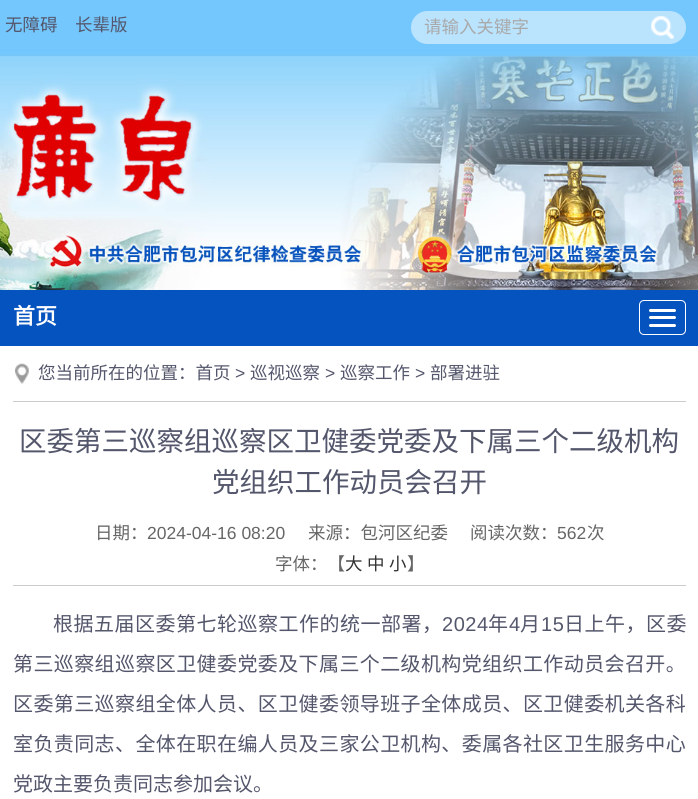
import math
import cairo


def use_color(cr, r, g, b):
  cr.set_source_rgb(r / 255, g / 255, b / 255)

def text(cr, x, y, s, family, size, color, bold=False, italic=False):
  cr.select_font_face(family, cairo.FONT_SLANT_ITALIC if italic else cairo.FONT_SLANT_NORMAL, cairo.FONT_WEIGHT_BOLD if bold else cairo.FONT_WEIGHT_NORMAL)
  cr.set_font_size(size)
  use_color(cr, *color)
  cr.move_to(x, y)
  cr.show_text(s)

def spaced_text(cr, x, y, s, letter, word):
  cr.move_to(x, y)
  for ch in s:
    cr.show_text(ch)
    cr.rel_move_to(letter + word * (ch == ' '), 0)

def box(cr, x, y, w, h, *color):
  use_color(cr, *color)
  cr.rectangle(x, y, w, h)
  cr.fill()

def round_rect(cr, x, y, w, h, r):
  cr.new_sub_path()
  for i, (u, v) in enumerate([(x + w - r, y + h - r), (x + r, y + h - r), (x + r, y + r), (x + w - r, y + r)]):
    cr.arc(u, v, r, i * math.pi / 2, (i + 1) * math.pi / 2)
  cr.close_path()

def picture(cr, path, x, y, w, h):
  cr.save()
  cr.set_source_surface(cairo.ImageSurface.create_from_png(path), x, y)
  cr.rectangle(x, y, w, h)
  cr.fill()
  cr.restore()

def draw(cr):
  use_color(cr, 255, 255, 255)
  cr.paint()
  picture(cr, "img_01.png", 0, 0, 698, 57)
  use_color(cr, 186, 227, 254)
  round_rect(cr, 411, 11, 275, 33, 16.5)
  cr.fill()
  picture(cr, "img_02.png", 651, 16, 23, 23)
  picture(cr, "img_03.png", 0, 56, 698, 234)
  box(cr, 0, 290, 698, 56, 5, 83, 191)
  round_rect(cr, 639.5, 300.5, 46, 34, 4.5)
  use_color(cr, 255, 255, 255)
  cr.set_line_width(1)
  cr.stroke()
  round_rect(cr, 649, 309, 27, 3, 1.5)
  cr.fill()
  round_rect(cr, 649, 316, 27, 3, 1.5)
  cr.fill()
  round_rect(cr, 649, 324, 27, 3, 1.5)
  cr.fill()
  picture(cr, "img_04.png", 15, 363, 14, 21)
  box(cr, 13, 401, 673, 1, 204, 204, 204)
  box(cr, 13, 585, 673, 1, 204, 204, 204)
  text(cr, 5, 31, "无障碍", "Noto Sans CJK SC", 17.5, (84, 87, 108))
  text(cr, 75, 31, "长辈版", "Noto Sans CJK SC", 17.5, (84, 87, 108))
  text(cr, 424, 33, "请输入关键字", "Noto Sans CJK SC", 17.5, (169, 169, 169))
  text(cr, 13, 324, "首页", "Noto Sans CJK SC", 22, (255, 255, 255), bold=True)
  text(cr, 38, 379, "您当前所在的位置：首页", "Noto Sans CJK SC", 17.5, (84, 87, 108))
  text(cr, 235, 379, ">", "Liberation Sans", 17.5, (84, 87, 108))
  text(cr, 250, 379, "巡视巡察", "Noto Sans CJK SC", 17.5, (84, 87, 108))
  text(cr, 325, 379, ">", "Liberation Sans", 17.5, (84, 87, 108))
  text(cr, 340, 379, "巡察工作", "Noto Sans CJK SC", 17.5, (84, 87, 108))
  text(cr, 415, 379, ">", "Liberation Sans", 17.5, (84, 87, 108))
  text(cr, 430, 379, "部署进驻", "Noto Sans CJK SC", 17.5, (84, 87, 108))
  text(cr, 19, 451, "区委第三巡察组巡察区卫健委党委及下属三个二级机构", "Noto Sans CJK SC", 27.5, (84, 87, 108))
  text(cr, 212, 492, "党组织工作动员会召开", "Noto Sans CJK SC", 27.5, (84, 87, 108))
  text(cr, 95, 539, "日期：", "Noto Sans CJK SC", 17.5, (102, 102, 102))
  text(cr, 147, 539, "2024-04-16 08:20", "Liberation Sans", 17.5, (102, 102, 102))
  text(cr, 308, 539, "来源：包河区纪委", "Noto Sans CJK SC", 17.5, (102, 102, 102))
  text(cr, 470, 539, "阅读次数：", "Noto Sans CJK SC", 17.5, (102, 102, 102))
  text(cr, 557, 539, "562", "Liberation Sans", 17.5, (102, 102, 102))
  text(cr, 587, 539, "次", "Noto Sans CJK SC", 17.5, (102, 102, 102))
  text(cr, 275, 570, "字体：【", "Noto Sans CJK SC", 17.5, (102, 102, 102))
  text(cr, 345, 570, "大", "Noto Sans CJK SC", 17.5, (51, 51, 51))
  text(cr, 367, 570, "中", "Noto Sans CJK SC", 17.5, (51, 51, 51))
  text(cr, 389, 570, "小", "Noto Sans CJK SC", 17.5, (51, 51, 51))
  text(cr, 407, 570, "】", "Noto Sans CJK SC", 17.5, (102, 102, 102))
  cr.set_font_size(20)
  use_color(cr, 84, 87, 108)
  spaced_text(cr, 53, 631, "根据五届区委第七轮巡察工作的统一部署，", 0.5, 0)
  cr.select_font_face("Liberation Sans")
  spaced_text(cr, 442, 631, "2024", 0.5, 0)
  cr.select_font_face("Noto Sans CJK SC")
  spaced_text(cr, 488, 631, "年", 0.5, 0)
  cr.select_font_face("Liberation Sans")
  spaced_text(cr, 509, 631, "4", 0.5, 0)
  cr.select_font_face("Noto Sans CJK SC")
  spaced_text(cr, 520, 631, "月", 0.5, 0)
  cr.select_font_face("Liberation Sans")
  spaced_text(cr, 541, 631, "15", 0.5, 0)
  cr.select_font_face("Noto Sans CJK SC")
  spaced_text(cr, 564, 631, "日上午，区委", 0.5, 0)
  spaced_text(cr, 13, 671, "第三巡察组巡察区卫健委党委及下属三个二级机构党组织工作动员会召开。", 0.4, 0)
  spaced_text(cr, 13, 711, "区委第三巡察组全体人员、区卫健委领导班子全体成员、区卫健委机关各科", 0.4, 0)
  spaced_text(cr, 13, 751, "室负责同志、全体在职在编人员及三家公卫机构、委属各社区卫生服务中心", 0.4, 0)
  text(cr, 13, 791, "党政主要负责同志参加会议。", "Noto Sans CJK SC", 20, (84, 87, 108))


surface = cairo.ImageSurface(cairo.FORMAT_RGB24, 698, 799)
cr = cairo.Context(surface)
options = cairo.FontOptions()
options.set_hint_metrics(cairo.HINT_METRICS_OFF)
options.set_hint_style(cairo.HINT_STYLE_NONE)
cr.set_font_options(options)
cr.set_miter_limit(4)
draw(cr)
surface.write_to_png("out.png")
